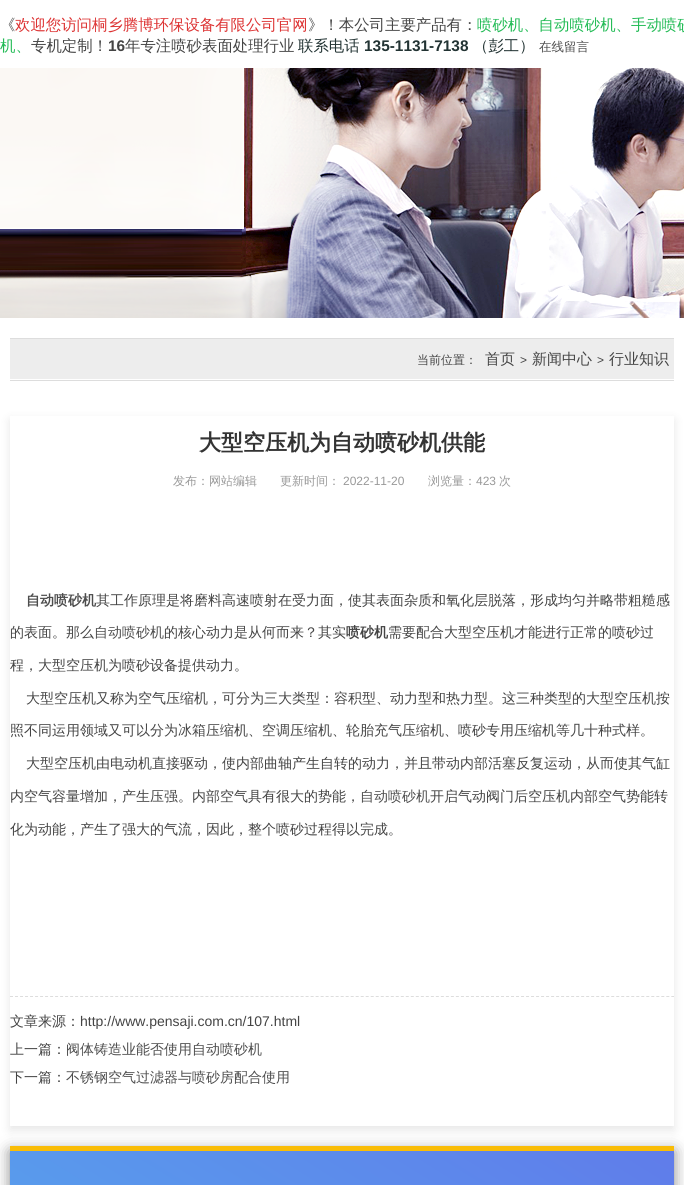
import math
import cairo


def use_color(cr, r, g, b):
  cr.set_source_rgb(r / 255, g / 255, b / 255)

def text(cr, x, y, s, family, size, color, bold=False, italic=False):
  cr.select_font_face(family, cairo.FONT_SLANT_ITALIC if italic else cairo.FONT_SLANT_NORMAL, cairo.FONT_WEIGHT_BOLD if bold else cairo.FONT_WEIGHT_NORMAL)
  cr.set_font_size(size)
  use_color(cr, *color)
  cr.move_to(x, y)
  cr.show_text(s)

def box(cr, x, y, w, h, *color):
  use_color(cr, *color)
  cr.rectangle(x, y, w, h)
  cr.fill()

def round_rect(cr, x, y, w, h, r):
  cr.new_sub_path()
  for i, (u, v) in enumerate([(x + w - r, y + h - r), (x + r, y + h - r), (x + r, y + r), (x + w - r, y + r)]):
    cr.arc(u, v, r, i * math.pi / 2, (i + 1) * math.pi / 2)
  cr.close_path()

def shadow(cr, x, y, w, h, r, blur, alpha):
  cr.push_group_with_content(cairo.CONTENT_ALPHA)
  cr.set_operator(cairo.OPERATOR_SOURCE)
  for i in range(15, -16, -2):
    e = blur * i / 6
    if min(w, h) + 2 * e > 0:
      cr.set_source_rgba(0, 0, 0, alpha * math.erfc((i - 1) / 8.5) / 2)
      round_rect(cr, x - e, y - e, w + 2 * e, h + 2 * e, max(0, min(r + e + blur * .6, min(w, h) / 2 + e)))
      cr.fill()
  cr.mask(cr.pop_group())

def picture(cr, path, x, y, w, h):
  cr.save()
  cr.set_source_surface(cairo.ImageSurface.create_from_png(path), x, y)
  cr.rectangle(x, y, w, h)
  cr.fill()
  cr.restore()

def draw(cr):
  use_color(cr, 255, 255, 255)
  cr.paint()
  picture(cr, "img_01.png", 0, 68, 684, 250)
  box(cr, 10, 339, 664, 40, 237, 237, 237)
  box(cr, 10, 338, 664, 1, 221, 221, 221)
  box(cr, 10, 380, 664, 1, 221, 221, 221)
  cr.save()
  cr.set_fill_rule(cairo.FILL_RULE_EVEN_ODD)
  cr.new_path()
  cr.move_to(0, 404)
  cr.line_to(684, 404)
  cr.line_to(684, 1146)
  cr.line_to(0, 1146)
  cr.close_path()
  cr.move_to(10, 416)
  cr.line_to(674, 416)
  cr.line_to(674, 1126)
  cr.line_to(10, 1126)
  cr.close_path()
  cr.clip()
  use_color(cr, 0, 0, 0)
  shadow(cr, 10, 420, 664, 710, 0, 5, 0.1)
  cr.restore()
  cr.new_path()
  cr.move_to(10, 996.5)
  cr.line_to(674, 996.5)
  cr.set_line_width(1)
  cr.set_dash([3, 2.01])
  cr.stroke()
  use_color(cr, 136, 136, 136)
  shadow(cr, 10, 1151, 664, 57, 0, 7.5, 1)
  gradient = cairo.LinearGradient(-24, 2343, 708, 1172)
  gradient.add_color_stop_rgba(0, 0.09, 0.18, 0.451, 1)
  gradient.add_color_stop_rgba(0.5, 0.325, 0.706, 0.933, 1)
  gradient.add_color_stop_rgba(1, 0.376, 0.486, 0.918, 1)
  cr.set_source(gradient)
  cr.rectangle(10, 1151, 664, 34)
  cr.fill()
  box(cr, 10, 1146, 664, 5, 249, 188, 6)
  text(cr, 0, 30, "《", "WenQuanYi Zen Hei Medium", 15.4, (68, 68, 68))
  text(cr, 15, 30, "欢迎您访问桐乡腾博环保设备有限公司官网", "WenQuanYi Zen Hei Medium", 15.4, (221, 51, 51))
  text(cr, 308, 30, "》！本公司主要产品有：", "WenQuanYi Zen Hei Medium", 15.4, (68, 68, 68))
  text(cr, 477, 30, "喷砂机、自动喷砂机、手动喷砂", "WenQuanYi Zen Hei Medium", 15.4, (34, 187, 85))
  text(cr, 0, 51, "机、", "WenQuanYi Zen Hei Medium", 15.4, (34, 187, 85))
  text(cr, 31, 51, "专机定制！", "WenQuanYi Zen Hei Medium", 15.4, (68, 68, 68))
  text(cr, 108, 51, "16", "Liberation Sans", 15.4, (68, 68, 68), bold=True)
  text(cr, 125, 51, "年专注喷砂表面处理行业", "WenQuanYi Zen Hei Medium", 15.4, (68, 68, 68))
  text(cr, 298, 51, "联系电话", "WenQuanYi Zen Hei Medium", 15.4, (34, 51, 51))
  text(cr, 364, 51, "135-1131-7138", "Liberation Sans", 15.4, (34, 51, 51), bold=True)
  text(cr, 473, 51, "（彭工）", "WenQuanYi Zen Hei Medium", 15.4, (34, 51, 51))
  text(cr, 539, 51, "在线留言", "WenQuanYi Zen Hei Medium", 12.5, (77, 77, 77))
  text(cr, 417, 364, "当前位置：", "WenQuanYi Zen Hei Medium", 12, (68, 68, 68))
  text(cr, 485, 364, "首页", "WenQuanYi Zen Hei Medium", 15, (68, 68, 68))
  text(cr, 520, 364, ">", "Liberation Sans", 12, (68, 68, 68))
  text(cr, 532, 364, "新闻中心", "WenQuanYi Zen Hei Medium", 15, (68, 68, 68))
  text(cr, 597, 364, ">", "Liberation Sans", 12, (68, 68, 68))
  text(cr, 609, 364, "行业知识", "WenQuanYi Zen Hei Medium", 15, (68, 68, 68))
  text(cr, 199, 450, "大型空压机为自动喷砂机供能", "WenQuanYi Zen Hei", 22, (51, 51, 51), bold=True)
  text(cr, 173, 485, "发布：网站编辑", "WenQuanYi Zen Hei Medium", 12, (153, 153, 153))
  text(cr, 280, 485, "更新时间：", "WenQuanYi Zen Hei Medium", 12, (153, 153, 153))
  text(cr, 343, 485, "2022-11-20", "Liberation Sans", 12, (153, 153, 153))
  text(cr, 428, 485, "浏览量：", "WenQuanYi Zen Hei Medium", 12, (153, 153, 153))
  text(cr, 476, 485, "423", "Liberation Sans", 12, (153, 153, 153))
  text(cr, 499, 485, "次", "WenQuanYi Zen Hei Medium", 12, (153, 153, 153))
  text(cr, 26, 605, "自动喷砂机", "WenQuanYi Zen Hei", 14, (77, 77, 77), bold=True)
  text(cr, 96, 605, "其工作原理是将磨料高速喷射在受力面，使其表面杂质和氧化层脱落，形成均匀并略带粗糙感", "WenQuanYi Zen Hei Medium", 14, (68, 68, 68))
  text(cr, 10, 637, "的表面。那么", "WenQuanYi Zen Hei Medium", 14, (68, 68, 68))
  text(cr, 94, 637, "自动喷砂机", "WenQuanYi Zen Hei Medium", 14, (77, 77, 77))
  text(cr, 164, 637, "的核心动力是从何而来？其实", "WenQuanYi Zen Hei Medium", 14, (68, 68, 68))
  text(cr, 346, 637, "喷砂机", "WenQuanYi Zen Hei", 14, (68, 68, 68), bold=True)
  text(cr, 388, 637, "需要配合大型空压机才能进行正常的喷砂过", "WenQuanYi Zen Hei Medium", 14, (68, 68, 68))
  text(cr, 10, 670, "程，大型空压机为喷砂设备提供动力。", "WenQuanYi Zen Hei Medium", 14, (68, 68, 68))
  text(cr, 26, 703, "大型空压机又称为空气压缩机，可分为三大类型：容积型、动力型和热力型。这三种类型的大型空压机按", "WenQuanYi Zen Hei Medium", 14, (68, 68, 68))
  text(cr, 10, 735, "照不同运用领域又可以分为冰箱压缩机、空调压缩机、轮胎充气压缩机、喷砂专用压缩机等几十种式样。", "WenQuanYi Zen Hei Medium", 14, (68, 68, 68))
  text(cr, 26, 768, "大型空压机由电动机直接驱动，使内部曲轴产生自转的动力，并且带动内部活塞反复运动，从而使其气缸", "WenQuanYi Zen Hei Medium", 14, (68, 68, 68))
  text(cr, 10, 801, "内空气容量增加，产生压强。内部空气具有很大的势能，", "WenQuanYi Zen Hei Medium", 14, (68, 68, 68))
  text(cr, 360, 801, "自动喷砂机", "WenQuanYi Zen Hei Medium", 14, (77, 77, 77))
  text(cr, 430, 801, "开启气动阀门后空压机内部空气势能转", "WenQuanYi Zen Hei Medium", 14, (68, 68, 68))
  text(cr, 10, 834, "化为动能，产生了强大的气流，因此，整个喷砂过程得以完成。", "WenQuanYi Zen Hei Medium", 14, (68, 68, 68))
  text(cr, 10, 1026, "文章来源：", "WenQuanYi Zen Hei Medium", 14, (68, 68, 68))
  text(cr, 80, 1026, "http://www.pensaji.com.cn/107.html", "Liberation Sans", 14, (68, 68, 68))
  text(cr, 10, 1054, "上一篇：", "WenQuanYi Zen Hei Medium", 14, (68, 68, 68))
  text(cr, 66, 1054, "阀体铸造业能否使用自动喷砂机", "WenQuanYi Zen Hei Medium", 14, (77, 77, 77))
  text(cr, 10, 1082, "下一篇：", "WenQuanYi Zen Hei Medium", 14, (68, 68, 68))
  text(cr, 66, 1082, "不锈钢空气过滤器与喷砂房配合使用", "WenQuanYi Zen Hei Medium", 14, (77, 77, 77))


surface = cairo.ImageSurface(cairo.FORMAT_RGB24, 684, 1185)
cr = cairo.Context(surface)
options = cairo.FontOptions()
options.set_hint_metrics(cairo.HINT_METRICS_OFF)
options.set_hint_style(cairo.HINT_STYLE_NONE)
cr.set_font_options(options)
cr.set_miter_limit(4)
draw(cr)
surface.write_to_png("out.png")
